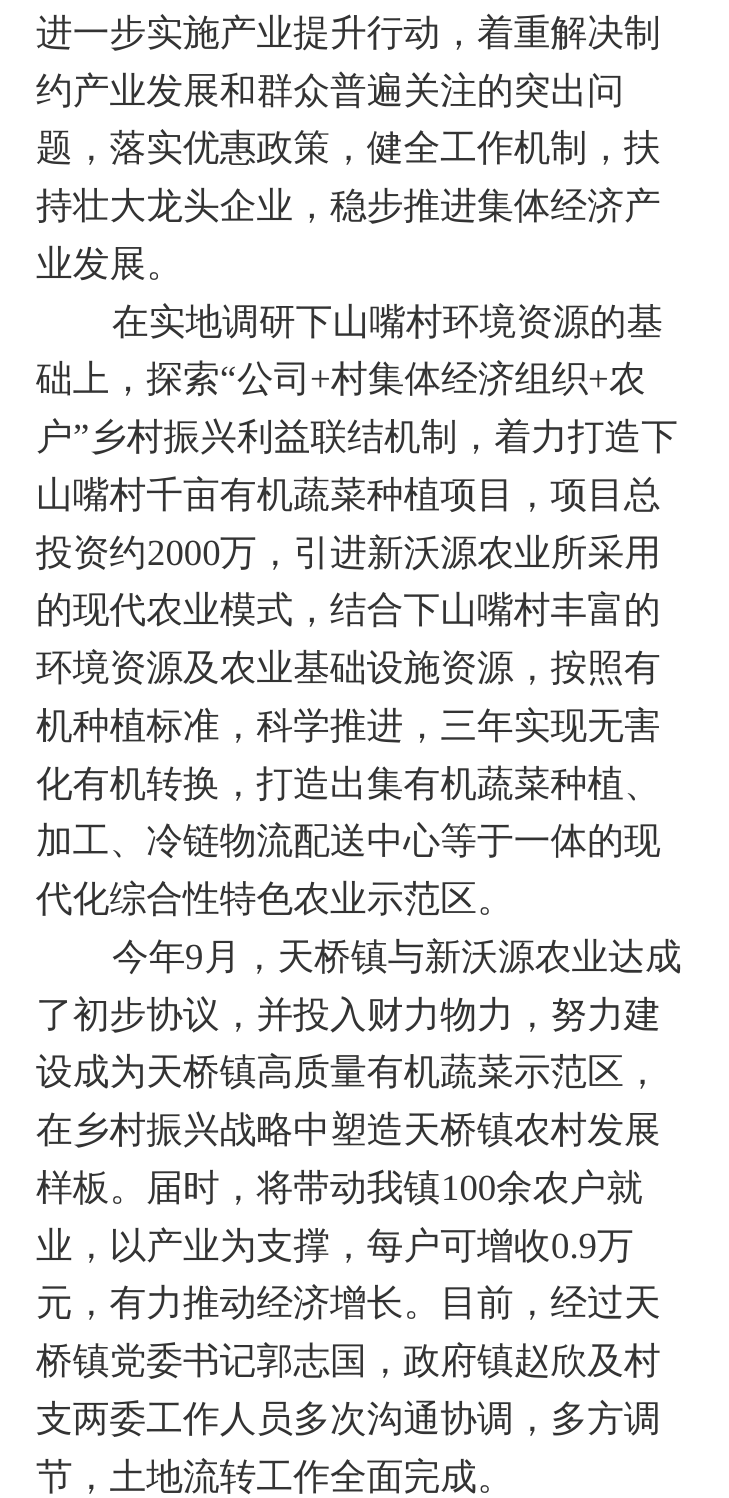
import math
import cairo


def use_color(cr, r, g, b):
  cr.set_source_rgb(r / 255, g / 255, b / 255)

def text(cr, x, y, s, family, size, color, bold=False, italic=False):
  cr.select_font_face(family, cairo.FONT_SLANT_ITALIC if italic else cairo.FONT_SLANT_NORMAL, cairo.FONT_WEIGHT_BOLD if bold else cairo.FONT_WEIGHT_NORMAL)
  cr.set_font_size(size)
  use_color(cr, *color)
  cr.move_to(x, y)
  cr.show_text(s)

def draw(cr):
  use_color(cr, 255, 255, 255)
  cr.paint()
  text(cr, 36, 45, "进一步实施产业提升行动，着重解决制", "WenQuanYi Zen Hei Medium", 36.75, (51, 51, 51))
  text(cr, 36, 103, "约产业发展和群众普遍关注的突出问", "WenQuanYi Zen Hei Medium", 36.75, (51, 51, 51))
  text(cr, 36, 160, "题，落实优惠政策，健全工作机制，扶", "WenQuanYi Zen Hei Medium", 36.75, (51, 51, 51))
  text(cr, 36, 218, "持壮大龙头企业，稳步推进集体经济产", "WenQuanYi Zen Hei Medium", 36.75, (51, 51, 51))
  text(cr, 36, 276, "业发展。", "WenQuanYi Zen Hei Medium", 36.75, (51, 51, 51))
  text(cr, 112, 334, "在实地调研下山嘴村环境资源的基", "WenQuanYi Zen Hei Medium", 36.75, (51, 51, 51))
  text(cr, 36, 391, "础上，探索", "WenQuanYi Zen Hei Medium", 36.75, (51, 51, 51))
  text(cr, 220, 391, "“", "Liberation Serif", 36.75, (51, 51, 51))
  text(cr, 237, 391, "公司", "WenQuanYi Zen Hei Medium", 36.75, (51, 51, 51))
  text(cr, 310, 391, "+", "Liberation Serif", 36.75, (51, 51, 51))
  text(cr, 331, 391, "村集体经济组织", "WenQuanYi Zen Hei Medium", 36.75, (51, 51, 51))
  text(cr, 588, 391, "+", "Liberation Serif", 36.75, (51, 51, 51))
  text(cr, 609, 391, "农", "WenQuanYi Zen Hei Medium", 36.75, (51, 51, 51))
  text(cr, 36, 449, "户", "WenQuanYi Zen Hei Medium", 36.75, (51, 51, 51))
  text(cr, 73, 449, "”", "Liberation Serif", 36.75, (51, 51, 51))
  text(cr, 90, 449, "乡村振兴利益联结机制，着力打造下", "WenQuanYi Zen Hei Medium", 36.75, (51, 51, 51))
  text(cr, 36, 507, "山嘴村千亩有机蔬菜种植项目，项目总", "WenQuanYi Zen Hei Medium", 36.75, (51, 51, 51))
  text(cr, 36, 565, "投资约", "WenQuanYi Zen Hei Medium", 36.75, (51, 51, 51))
  text(cr, 147, 565, "2000", "Liberation Serif", 36.75, (51, 51, 51))
  text(cr, 220, 565, "万，引进新沃源农业所采用", "WenQuanYi Zen Hei Medium", 36.75, (51, 51, 51))
  text(cr, 36, 622, "的现代农业模式，结合下山嘴村丰富的", "WenQuanYi Zen Hei Medium", 36.75, (51, 51, 51))
  text(cr, 36, 680, "环境资源及农业基础设施资源，按照有", "WenQuanYi Zen Hei Medium", 36.75, (51, 51, 51))
  text(cr, 36, 738, "机种植标准，科学推进，三年实现无害", "WenQuanYi Zen Hei Medium", 36.75, (51, 51, 51))
  text(cr, 36, 796, "化有机转换，打造出集有机蔬菜种植、", "WenQuanYi Zen Hei Medium", 36.75, (51, 51, 51))
  text(cr, 36, 853, "加工、冷链物流配送中心等于一体的现", "WenQuanYi Zen Hei Medium", 36.75, (51, 51, 51))
  text(cr, 36, 911, "代化综合性特色农业示范区。", "WenQuanYi Zen Hei Medium", 36.75, (51, 51, 51))
  text(cr, 112, 969, "今年", "WenQuanYi Zen Hei Medium", 36.75, (51, 51, 51))
  text(cr, 185, 969, "9", "Liberation Serif", 36.75, (51, 51, 51))
  text(cr, 204, 969, "月，天桥镇与新沃源农业达成", "WenQuanYi Zen Hei Medium", 36.75, (51, 51, 51))
  text(cr, 36, 1027, "了初步协议，并投入财力物力，努力建", "WenQuanYi Zen Hei Medium", 36.75, (51, 51, 51))
  text(cr, 36, 1084, "设成为天桥镇高质量有机蔬菜示范区，", "WenQuanYi Zen Hei Medium", 36.75, (51, 51, 51))
  text(cr, 36, 1142, "在乡村振兴战略中塑造天桥镇农村发展", "WenQuanYi Zen Hei Medium", 36.75, (51, 51, 51))
  text(cr, 36, 1200, "样板。届时，将带动我镇", "WenQuanYi Zen Hei Medium", 36.75, (51, 51, 51))
  text(cr, 441, 1200, "100", "Liberation Serif", 36.75, (51, 51, 51))
  text(cr, 496, 1200, "余农户就", "WenQuanYi Zen Hei Medium", 36.75, (51, 51, 51))
  text(cr, 36, 1258, "业，以产业为支撑，每户可增收", "WenQuanYi Zen Hei Medium", 36.75, (51, 51, 51))
  text(cr, 551, 1258, "0.9", "Liberation Serif", 36.75, (51, 51, 51))
  text(cr, 597, 1258, "万", "WenQuanYi Zen Hei Medium", 36.75, (51, 51, 51))
  text(cr, 36, 1315, "元，有力推动经济增长。目前，经过天", "WenQuanYi Zen Hei Medium", 36.75, (51, 51, 51))
  text(cr, 36, 1373, "桥镇党委书记郭志国，政府镇赵欣及村", "WenQuanYi Zen Hei Medium", 36.75, (51, 51, 51))
  text(cr, 36, 1431, "支两委工作人员多次沟通协调，多方调", "WenQuanYi Zen Hei Medium", 36.75, (51, 51, 51))
  text(cr, 36, 1489, "节，土地流转工作全面完成。", "WenQuanYi Zen Hei Medium", 36.75, (51, 51, 51))


surface = cairo.ImageSurface(cairo.FORMAT_RGB24, 729, 1498)
cr = cairo.Context(surface)
options = cairo.FontOptions()
options.set_hint_metrics(cairo.HINT_METRICS_OFF)
options.set_hint_style(cairo.HINT_STYLE_NONE)
cr.set_font_options(options)
cr.set_miter_limit(4)
draw(cr)
surface.write_to_png("out.png")
